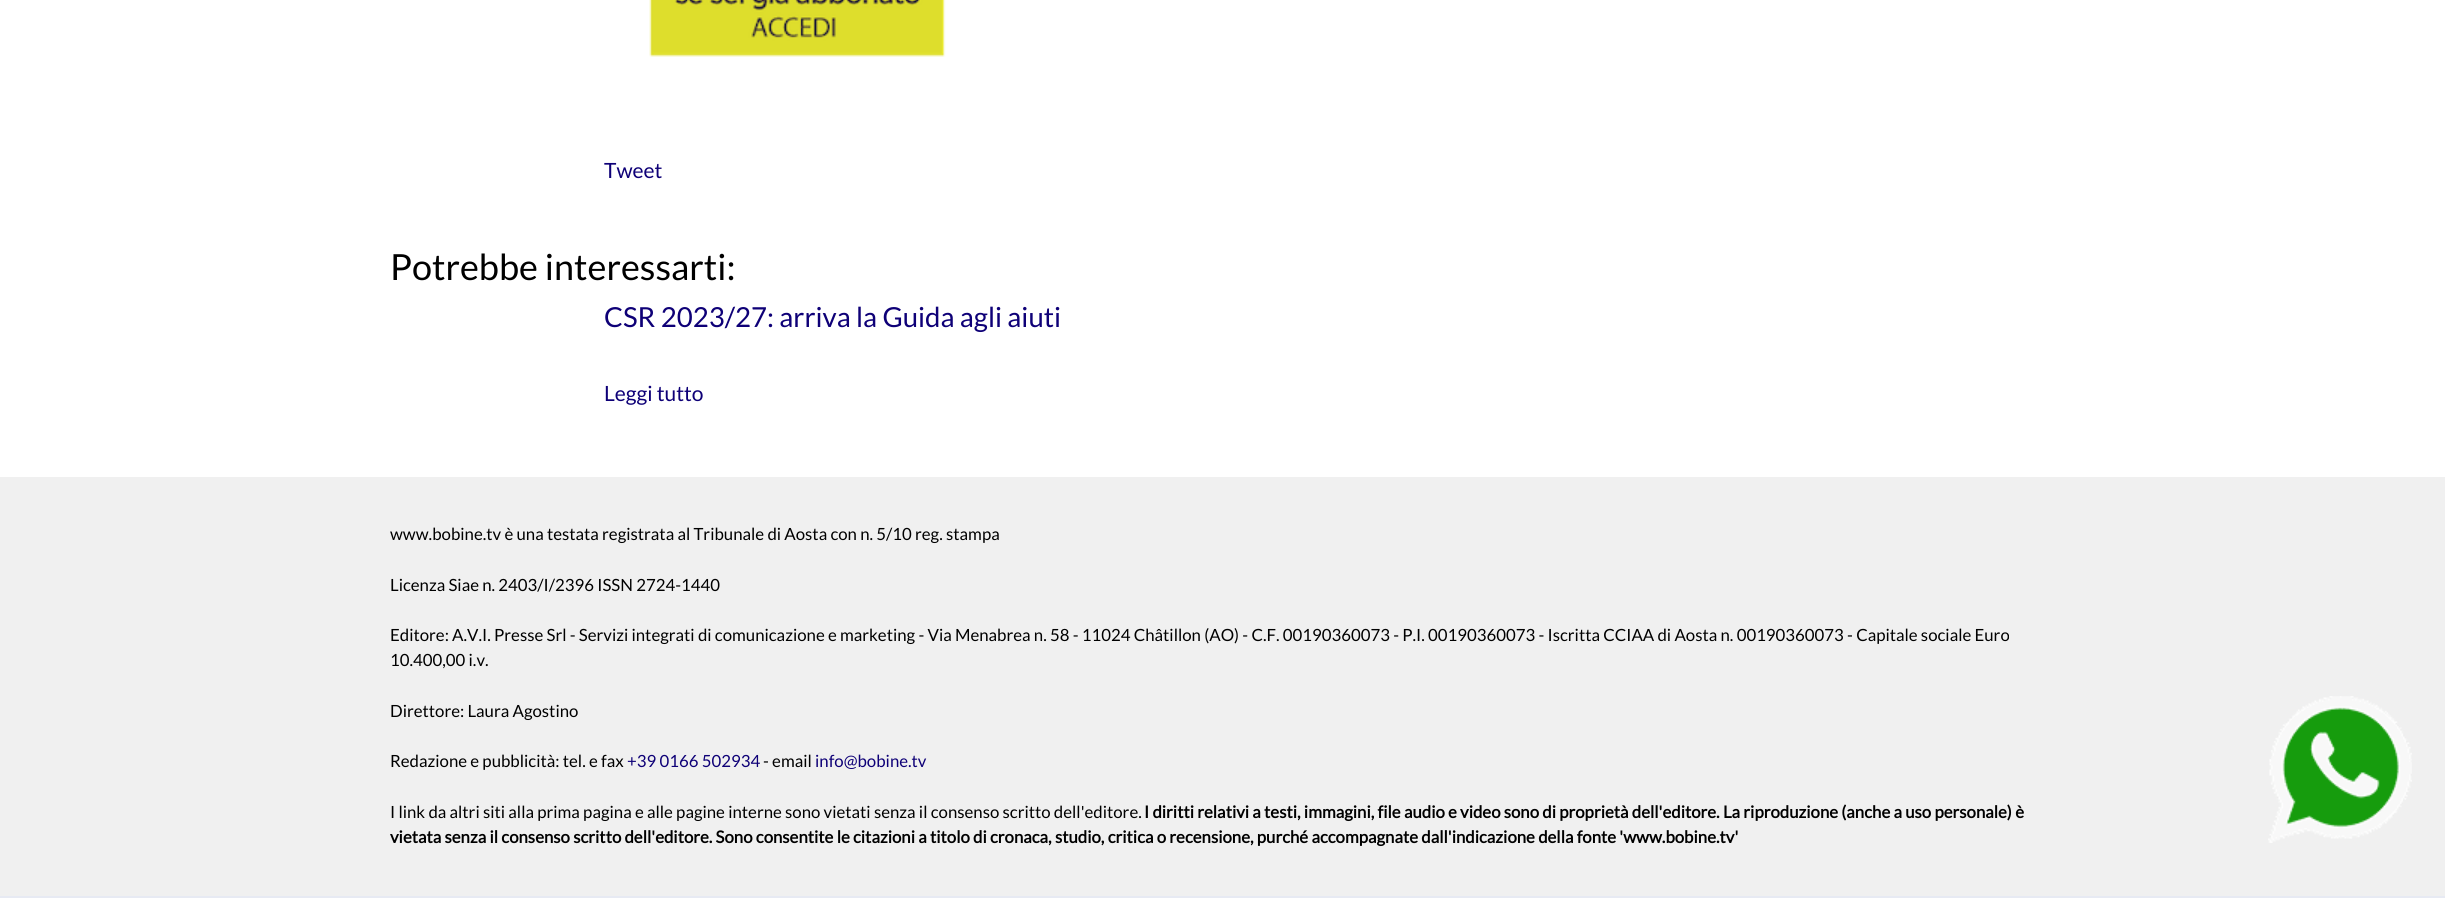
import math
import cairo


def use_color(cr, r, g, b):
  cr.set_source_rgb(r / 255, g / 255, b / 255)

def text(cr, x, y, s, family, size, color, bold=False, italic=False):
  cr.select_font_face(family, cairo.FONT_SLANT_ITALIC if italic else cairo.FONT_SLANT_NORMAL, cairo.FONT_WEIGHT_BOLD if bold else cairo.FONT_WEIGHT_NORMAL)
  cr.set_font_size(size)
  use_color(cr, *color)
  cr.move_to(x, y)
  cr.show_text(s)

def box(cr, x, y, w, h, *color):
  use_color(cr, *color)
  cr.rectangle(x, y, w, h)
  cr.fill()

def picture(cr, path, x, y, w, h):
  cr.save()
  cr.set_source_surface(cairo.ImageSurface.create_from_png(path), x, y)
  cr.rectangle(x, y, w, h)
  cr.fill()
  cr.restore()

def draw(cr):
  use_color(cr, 255, 255, 255)
  cr.paint()
  picture(cr, "img_01.png", 649, 0, 297, 57)
  box(cr, 0, 477, 2445, 419, 240, 240, 240)
  box(cr, 0, 896, 2445, 2, 231, 234, 243)
  picture(cr, "img_02.png", 2268, 696, 144, 147)
  text(cr, 604, 178, "Tweet", "Lato", 21, (14, 0, 119))
  text(cr, 390, 280, "Potrebbe interessarti:", "Lato", 36, (0, 0, 0))
  text(cr, 604, 327, "CSR 2023/27: arriva la Guida agli aiuti", "Lato", 27.6, (14, 0, 119))
  text(cr, 604, 401, "Leggi tutto", "Lato", 21, (14, 0, 119))
  text(cr, 390, 540, "www.bobine.tv è una testata registrata al Tribunale di Aosta con n. 5/10 reg. stampa", "Lato", 16.8, (0, 0, 0))
  text(cr, 390, 591, "Licenza Siae n. 2403/I/2396 ISSN 2724-1440", "Lato", 16.8, (0, 0, 0))
  text(cr, 390, 641, "Editore: A.V.I. Presse Srl - Servizi integrati di comunicazione e marketing - Via Menabrea n. 58 - 11024 Châtillon (AO) - C.F. 00190360073 - P.I. 00190360073 - Iscritta CCIAA di Aosta n. 00190360073 - Capitale sociale Euro", "Lato", 16.8, (0, 0, 0))
  text(cr, 390, 666, "10.400,00 i.v.", "Lato", 16.8, (0, 0, 0))
  text(cr, 390, 717, "Direttore: Laura Agostino", "Lato", 16.8, (0, 0, 0))
  text(cr, 390, 767, "Redazione e pubblicità: tel. e fax", "Lato", 16.8, (0, 0, 0))
  text(cr, 627, 767, "+39 0166 502934", "Lato", 16.8, (14, 0, 119))
  text(cr, 763, 767, "- email", "Lato", 16.8, (0, 0, 0))
  text(cr, 815, 767, "info@bobine.tv", "Lato", 16.8, (14, 0, 119))
  text(cr, 390, 818, "I link da altri siti alla prima pagina e alle pagine interne sono vietati senza il consenso scritto dell'editore.", "Lato", 16.8, (0, 0, 0))
  text(cr, 1144, 818, "I diritti relativi a testi, immagini, file audio e video sono di proprietà dell'editore. La riproduzione (anche a uso personale) è", "Lato", 16.8, (0, 0, 0), bold=True)
  text(cr, 390, 843, "vietata senza il consenso scritto dell'editore. Sono consentite le citazioni a titolo di cronaca, studio, critica o recensione, purché accompagnate dall'indicazione della fonte 'www.bobine.tv'", "Lato", 16.8, (0, 0, 0), bold=True)


surface = cairo.ImageSurface(cairo.FORMAT_RGB24, 2445, 904)
cr = cairo.Context(surface)
options = cairo.FontOptions()
options.set_hint_metrics(cairo.HINT_METRICS_OFF)
options.set_hint_style(cairo.HINT_STYLE_NONE)
cr.set_font_options(options)
cr.set_miter_limit(4)
draw(cr)
surface.write_to_png("out.png")
